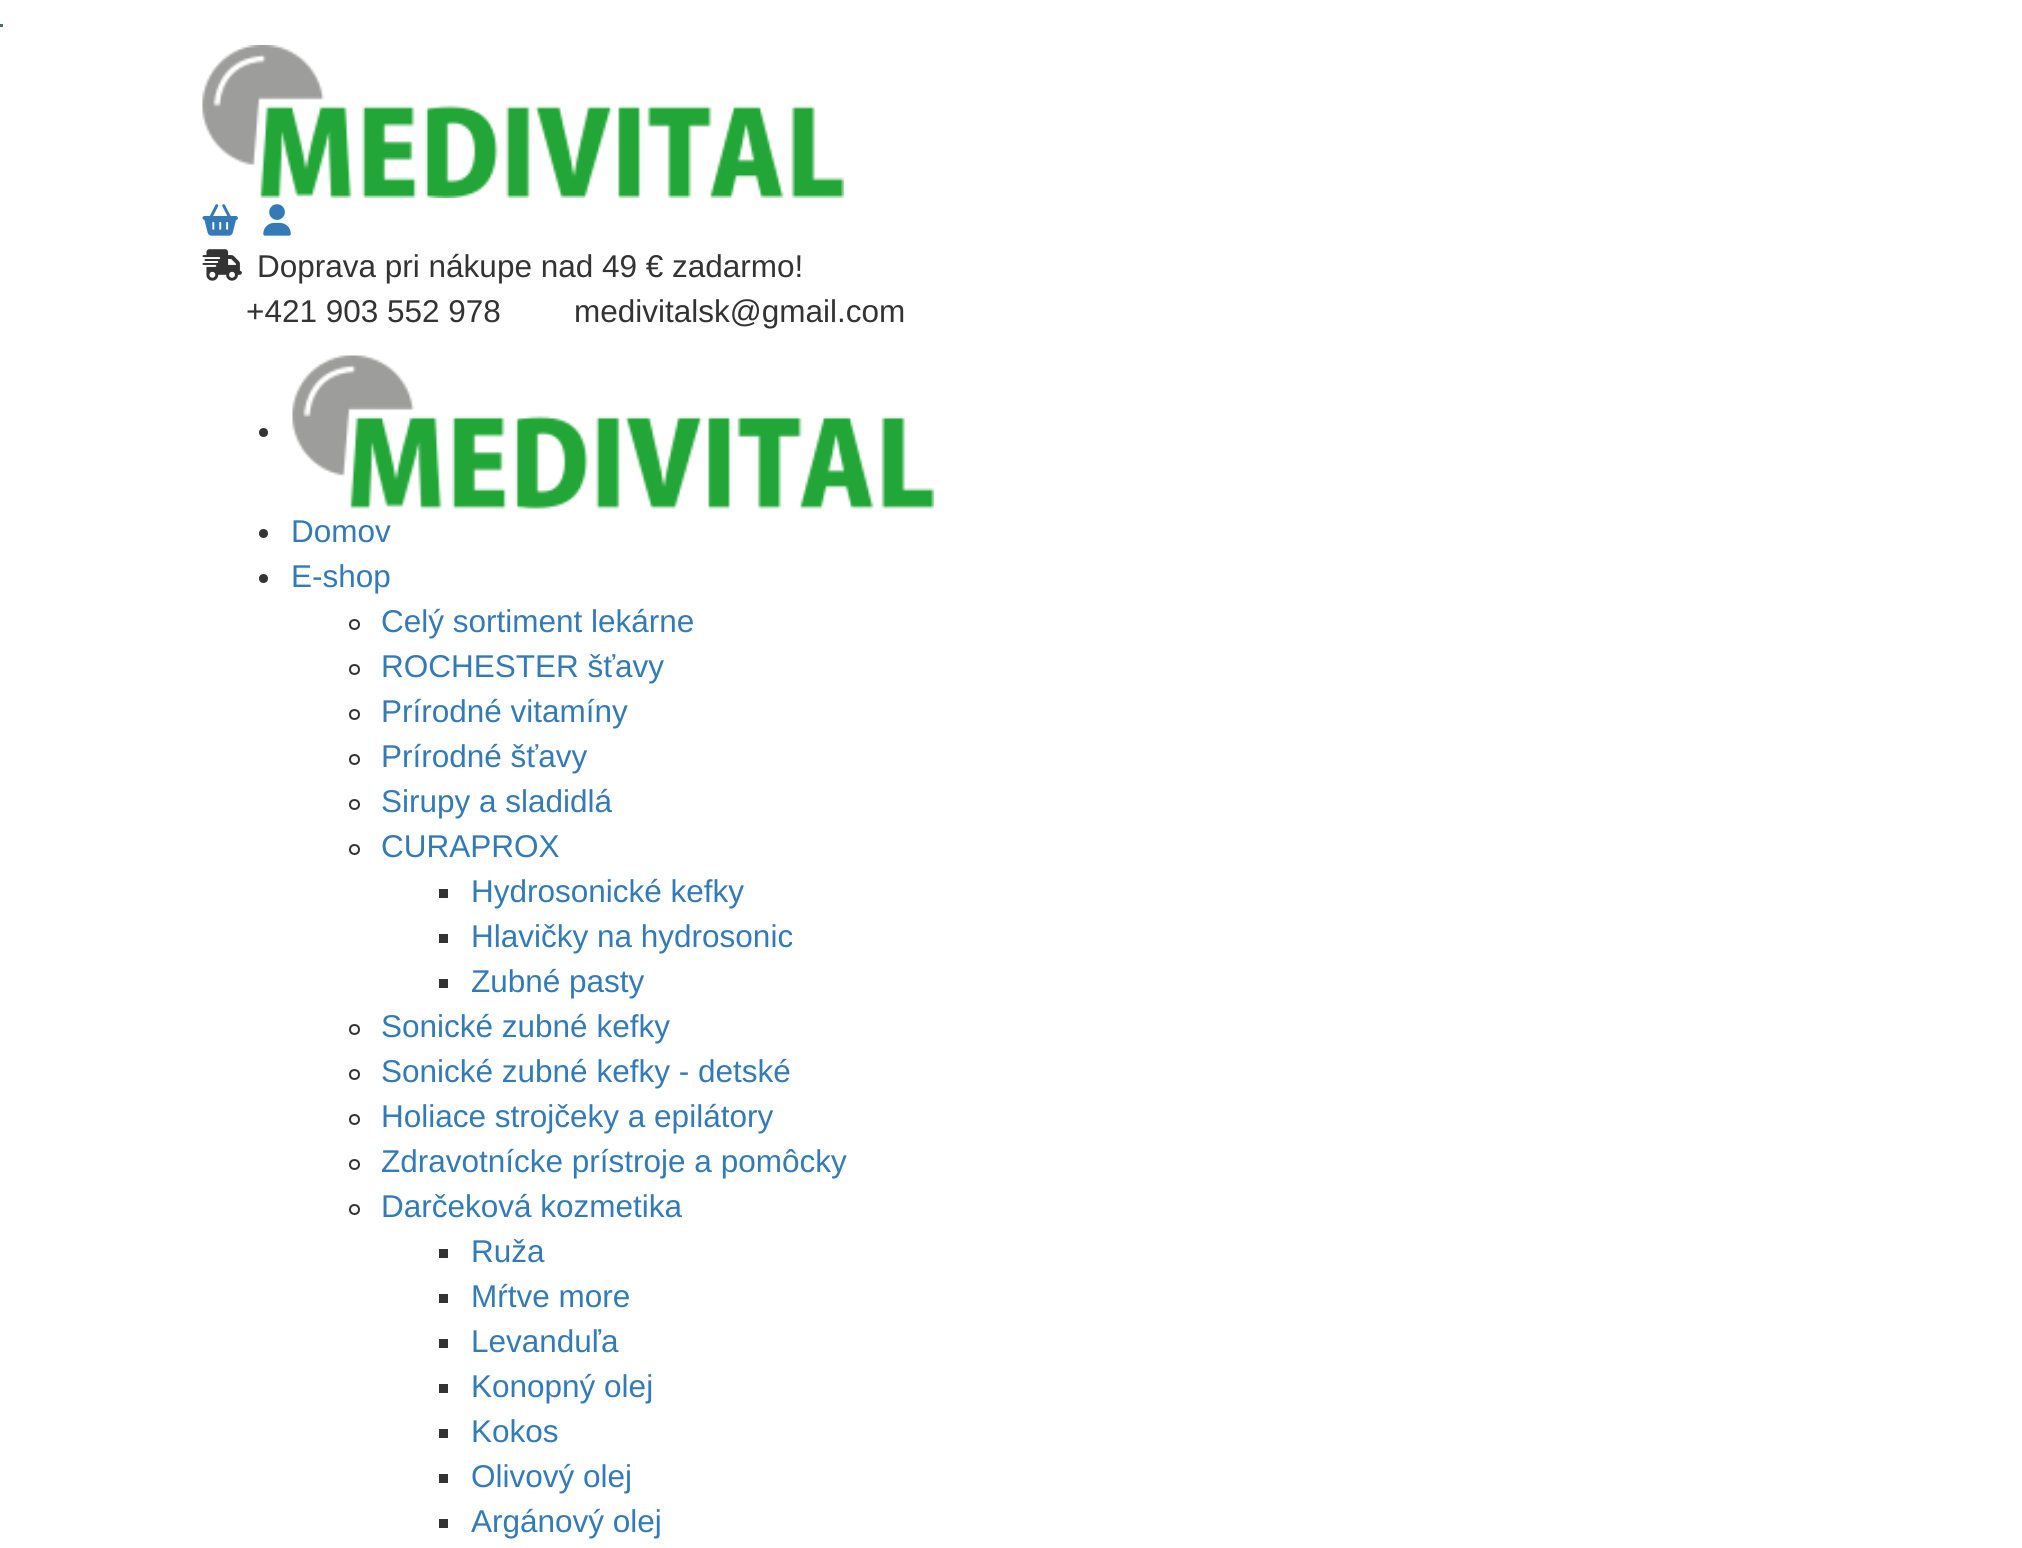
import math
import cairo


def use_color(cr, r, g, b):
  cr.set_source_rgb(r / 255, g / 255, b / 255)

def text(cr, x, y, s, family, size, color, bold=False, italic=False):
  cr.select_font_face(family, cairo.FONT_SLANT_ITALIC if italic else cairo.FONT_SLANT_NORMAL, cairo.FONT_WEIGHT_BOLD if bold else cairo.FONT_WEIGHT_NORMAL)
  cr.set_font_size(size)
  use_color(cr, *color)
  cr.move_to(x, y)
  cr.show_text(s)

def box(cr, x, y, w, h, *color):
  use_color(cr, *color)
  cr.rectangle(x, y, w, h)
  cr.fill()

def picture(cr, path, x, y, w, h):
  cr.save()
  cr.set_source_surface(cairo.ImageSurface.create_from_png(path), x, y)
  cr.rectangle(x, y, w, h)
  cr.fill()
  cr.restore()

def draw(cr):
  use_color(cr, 255, 255, 255)
  cr.paint()
  box(cr, 0, 24, 3, 3, 82, 108, 97)
  picture(cr, "img_01.png", 202, 45, 642, 153)
  picture(cr, "img_02.png", 202, 204, 36, 32)
  picture(cr, "img_03.png", 263, 204, 28, 32)
  picture(cr, "img_04.png", 202, 249, 40, 32)
  use_color(cr, 51, 51, 51)
  cr.arc(263.5, 432.5, 4.5, 0, 2 * math.pi)
  cr.fill()
  picture(cr, "img_05.png", 292, 355, 642, 154)
  cr.arc(263.5, 533.5, 4.5, 0, 2 * math.pi)
  cr.fill()
  cr.arc(263.5, 578.5, 4.5, 0, 2 * math.pi)
  cr.fill()
  cr.arc(354.5, 624.5, 4.5, 0, 2 * math.pi)
  cr.stroke()
  cr.arc(354.5, 669.5, 4.5, 0, 2 * math.pi)
  cr.stroke()
  cr.arc(354.5, 714.5, 4.5, 0, 2 * math.pi)
  cr.stroke()
  cr.arc(354.5, 759.5, 4.5, 0, 2 * math.pi)
  cr.stroke()
  cr.arc(354.5, 804.5, 4.5, 0, 2 * math.pi)
  cr.stroke()
  cr.arc(354.5, 849.5, 4.5, 0, 2 * math.pi)
  cr.stroke()
  box(cr, 439, 889, 9, 9, 51, 51, 51)
  box(cr, 439, 934, 9, 9, 51, 51, 51)
  box(cr, 439, 979, 9, 9, 51, 51, 51)
  cr.arc(354.5, 1029.5, 4.5, 0, 2 * math.pi)
  cr.stroke()
  cr.arc(354.5, 1074.5, 4.5, 0, 2 * math.pi)
  cr.stroke()
  cr.arc(354.5, 1119.5, 4.5, 0, 2 * math.pi)
  cr.stroke()
  cr.arc(354.5, 1164.5, 4.5, 0, 2 * math.pi)
  cr.stroke()
  cr.arc(354.5, 1209.5, 4.5, 0, 2 * math.pi)
  cr.stroke()
  box(cr, 439, 1249, 9, 9, 51, 51, 51)
  box(cr, 439, 1294, 9, 9, 51, 51, 51)
  box(cr, 439, 1339, 9, 9, 51, 51, 51)
  box(cr, 439, 1384, 9, 9, 51, 51, 51)
  box(cr, 439, 1429, 9, 9, 51, 51, 51)
  box(cr, 439, 1474, 9, 9, 51, 51, 51)
  box(cr, 439, 1519, 9, 9, 51, 51, 51)
  text(cr, 257, 277, "Doprava pri nákupe nad 49 € zadarmo!", "Liberation Sans", 31.5, (51, 51, 51))
  text(cr, 246, 322, "+421 903 552 978", "Liberation Sans", 31.5, (51, 51, 51))
  text(cr, 574, 322, "medivitalsk@gmail.com", "Liberation Sans", 31.5, (51, 51, 51))
  text(cr, 291, 542, "Domov", "Liberation Sans", 31.5, (51, 122, 183))
  text(cr, 291, 587, "E-shop", "Liberation Sans", 31.5, (51, 122, 183))
  text(cr, 381, 632, "Celý sortiment lekárne", "Liberation Sans", 31.5, (51, 122, 183))
  text(cr, 381, 677, "ROCHESTER šťavy", "Liberation Sans", 31.5, (51, 122, 183))
  text(cr, 381, 722, "Prírodné vitamíny", "Liberation Sans", 31.5, (51, 122, 183))
  text(cr, 381, 767, "Prírodné šťavy", "Liberation Sans", 31.5, (51, 122, 183))
  text(cr, 381, 812, "Sirupy a sladidlá", "Liberation Sans", 31.5, (51, 122, 183))
  text(cr, 381, 857, "CURAPROX", "Liberation Sans", 31.5, (51, 122, 183))
  text(cr, 471, 902, "Hydrosonické kefky", "Liberation Sans", 31.5, (51, 122, 183))
  text(cr, 471, 947, "Hlavičky na hydrosonic", "Liberation Sans", 31.5, (51, 122, 183))
  text(cr, 471, 992, "Zubné pasty", "Liberation Sans", 31.5, (51, 122, 183))
  text(cr, 381, 1037, "Sonické zubné kefky", "Liberation Sans", 31.5, (51, 122, 183))
  text(cr, 381, 1082, "Sonické zubné kefky - detské", "Liberation Sans", 31.5, (51, 122, 183))
  text(cr, 381, 1127, "Holiace strojčeky a epilátory", "Liberation Sans", 31.5, (51, 122, 183))
  text(cr, 381, 1172, "Zdravotnícke prístroje a pomôcky", "Liberation Sans", 31.5, (51, 122, 183))
  text(cr, 381, 1217, "Darčeková kozmetika", "Liberation Sans", 31.5, (51, 122, 183))
  text(cr, 471, 1262, "Ruža", "Liberation Sans", 31.5, (51, 122, 183))
  text(cr, 471, 1307, "Mŕtve more", "Liberation Sans", 31.5, (51, 122, 183))
  text(cr, 471, 1352, "Levanduľa", "Liberation Sans", 31.5, (51, 122, 183))
  text(cr, 471, 1397, "Konopný olej", "Liberation Sans", 31.5, (51, 122, 183))
  text(cr, 471, 1442, "Kokos", "Liberation Sans", 31.5, (51, 122, 183))
  text(cr, 471, 1487, "Olivový olej", "Liberation Sans", 31.5, (51, 122, 183))
  text(cr, 471, 1532, "Argánový olej", "Liberation Sans", 31.5, (51, 122, 183))


surface = cairo.ImageSurface(cairo.FORMAT_RGB24, 2022, 1548)
cr = cairo.Context(surface)
options = cairo.FontOptions()
options.set_hint_metrics(cairo.HINT_METRICS_OFF)
options.set_hint_style(cairo.HINT_STYLE_NONE)
cr.set_font_options(options)
cr.set_miter_limit(4)
draw(cr)
surface.write_to_png("out.png")
